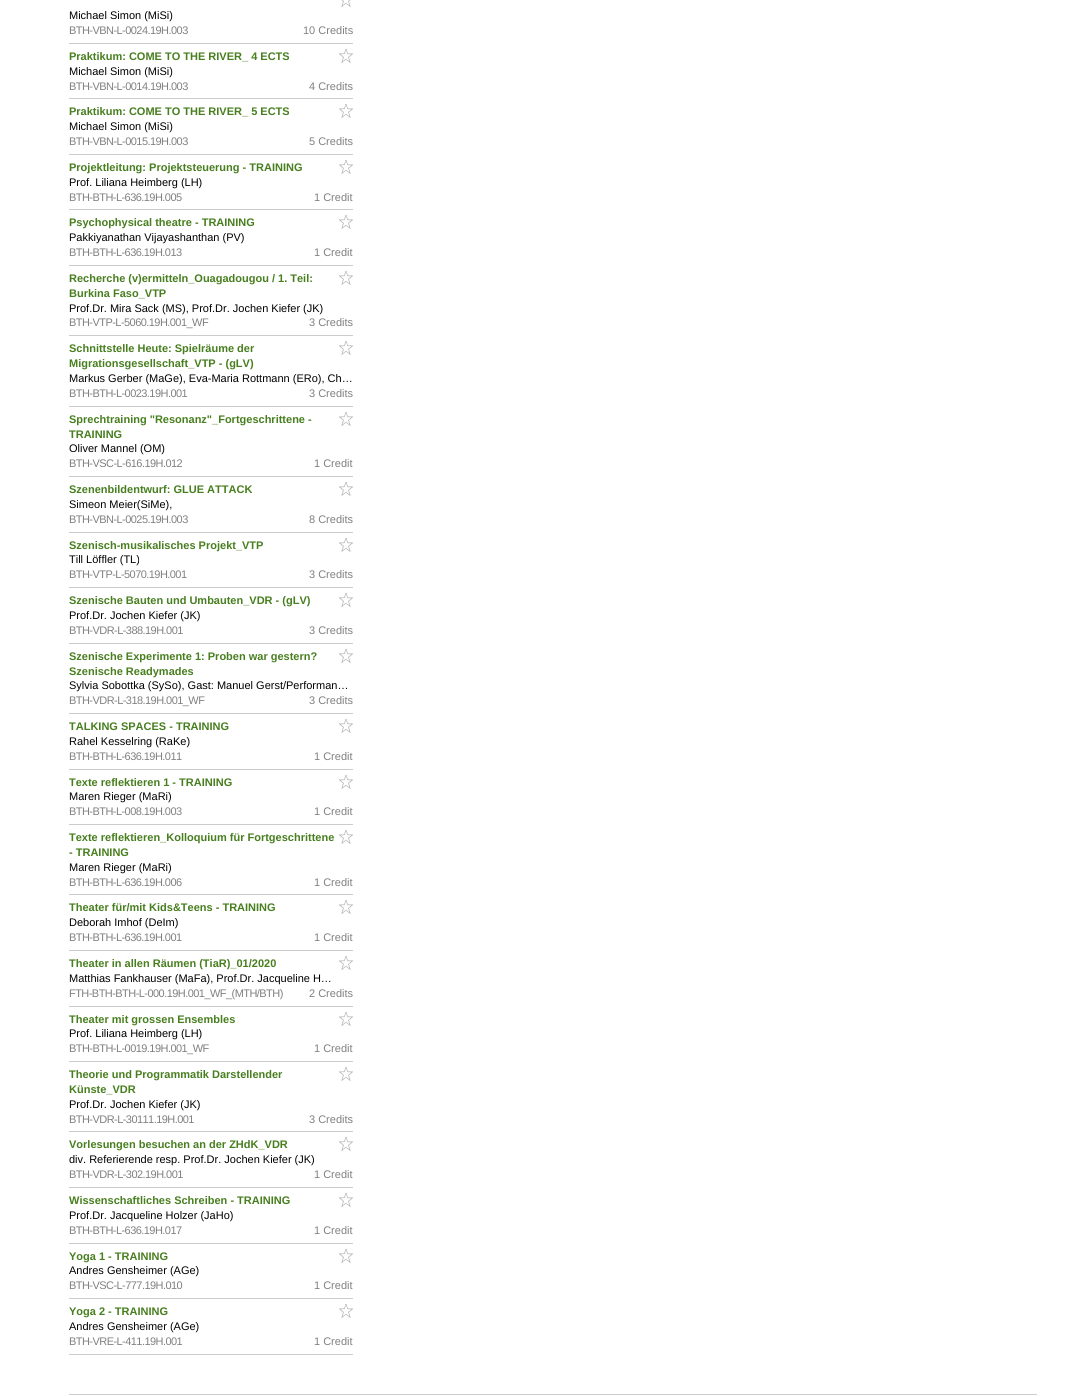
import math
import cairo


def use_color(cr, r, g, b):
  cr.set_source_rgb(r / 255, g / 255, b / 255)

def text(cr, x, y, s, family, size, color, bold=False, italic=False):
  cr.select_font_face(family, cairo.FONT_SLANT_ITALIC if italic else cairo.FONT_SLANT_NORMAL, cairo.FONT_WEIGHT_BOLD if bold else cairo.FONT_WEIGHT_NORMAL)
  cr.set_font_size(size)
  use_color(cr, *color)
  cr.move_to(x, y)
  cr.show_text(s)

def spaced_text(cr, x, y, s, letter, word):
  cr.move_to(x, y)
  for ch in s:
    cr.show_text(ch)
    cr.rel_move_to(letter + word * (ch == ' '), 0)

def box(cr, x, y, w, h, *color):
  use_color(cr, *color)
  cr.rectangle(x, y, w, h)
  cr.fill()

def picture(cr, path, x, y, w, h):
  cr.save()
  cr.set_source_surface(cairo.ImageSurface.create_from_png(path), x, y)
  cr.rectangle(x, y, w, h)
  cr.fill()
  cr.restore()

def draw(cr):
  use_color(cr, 255, 255, 255)
  cr.paint()
  box(cr, 69, 43, 284, 1, 204, 204, 204)
  picture(cr, "img_01.png", 341, 0, 10, 7)
  box(cr, 69, 98, 284, 1, 204, 204, 204)
  picture(cr, "img_02.png", 339, 49, 14, 14)
  box(cr, 69, 154, 284, 1, 204, 204, 204)
  picture(cr, "img_02.png", 339, 104, 14, 14)
  box(cr, 69, 209, 284, 1, 204, 204, 204)
  picture(cr, "img_02.png", 339, 160, 14, 14)
  box(cr, 69, 265, 284, 1, 204, 204, 204)
  picture(cr, "img_02.png", 339, 215, 14, 14)
  box(cr, 69, 335, 284, 1, 204, 204, 204)
  picture(cr, "img_02.png", 339, 271, 14, 14)
  box(cr, 69, 406, 284, 1, 204, 204, 204)
  picture(cr, "img_02.png", 339, 341, 14, 14)
  box(cr, 69, 476, 284, 1, 204, 204, 204)
  picture(cr, "img_02.png", 339, 412, 14, 14)
  box(cr, 69, 532, 284, 1, 204, 204, 204)
  picture(cr, "img_02.png", 339, 482, 14, 14)
  box(cr, 69, 587, 284, 1, 204, 204, 204)
  picture(cr, "img_02.png", 339, 538, 14, 14)
  box(cr, 69, 643, 284, 1, 204, 204, 204)
  picture(cr, "img_02.png", 339, 593, 14, 14)
  box(cr, 69, 713, 284, 1, 204, 204, 204)
  picture(cr, "img_02.png", 339, 649, 14, 14)
  box(cr, 69, 769, 284, 1, 204, 204, 204)
  picture(cr, "img_02.png", 339, 719, 14, 14)
  box(cr, 69, 824, 284, 1, 204, 204, 204)
  picture(cr, "img_02.png", 339, 775, 14, 14)
  box(cr, 69, 894, 284, 1, 204, 204, 204)
  picture(cr, "img_02.png", 339, 830, 14, 14)
  box(cr, 69, 950, 284, 1, 204, 204, 204)
  picture(cr, "img_02.png", 339, 900, 14, 14)
  box(cr, 69, 1006, 284, 1, 204, 204, 204)
  picture(cr, "img_02.png", 339, 956, 14, 14)
  box(cr, 69, 1061, 284, 1, 204, 204, 204)
  picture(cr, "img_02.png", 339, 1012, 14, 14)
  box(cr, 69, 1131, 284, 1, 204, 204, 204)
  picture(cr, "img_02.png", 339, 1067, 14, 14)
  box(cr, 69, 1187, 284, 1, 204, 204, 204)
  picture(cr, "img_02.png", 339, 1137, 14, 14)
  box(cr, 69, 1243, 284, 1, 204, 204, 204)
  picture(cr, "img_02.png", 339, 1193, 14, 14)
  box(cr, 69, 1298, 284, 1, 204, 204, 204)
  picture(cr, "img_02.png", 339, 1249, 14, 14)
  box(cr, 69, 1354, 284, 1, 204, 204, 204)
  picture(cr, "img_02.png", 339, 1304, 14, 14)
  box(cr, 69, 1394, 968, 1, 204, 204, 204)
  text(cr, 69, 19, "Michael Simon (MiSi)", "Liberation Sans", 11, (0, 0, 0))
  use_color(cr, 128, 128, 128)
  spaced_text(cr, 69, 34, "BTH-VBN-L-0024.19H.003", -0.55, 0)
  text(cr, 303, 34, "10 Credits", "Liberation Sans", 11, (128, 128, 128))
  text(cr, 69, 60, "Praktikum: COME TO THE RIVER_ 4 ECTS", "Liberation Sans", 11, (71, 126, 30), bold=True)
  text(cr, 69, 75, "Michael Simon (MiSi)", "Liberation Sans", 11, (0, 0, 0))
  use_color(cr, 128, 128, 128)
  spaced_text(cr, 69, 90, "BTH-VBN-L-0014.19H.003", -0.55, 0)
  text(cr, 309, 90, "4 Credits", "Liberation Sans", 11, (128, 128, 128))
  text(cr, 69, 115, "Praktikum: COME TO THE RIVER_ 5 ECTS", "Liberation Sans", 11, (71, 126, 30), bold=True)
  text(cr, 69, 130, "Michael Simon (MiSi)", "Liberation Sans", 11, (0, 0, 0))
  use_color(cr, 128, 128, 128)
  spaced_text(cr, 69, 145, "BTH-VBN-L-0015.19H.003", -0.55, 0)
  text(cr, 309, 145, "5 Credits", "Liberation Sans", 11, (128, 128, 128))
  text(cr, 69, 171, "Projektleitung: Projektsteuerung - TRAINING", "Liberation Sans", 11, (71, 126, 30), bold=True)
  text(cr, 69, 186, "Prof. Liliana Heimberg (LH)", "Liberation Sans", 11, (0, 0, 0))
  use_color(cr, 128, 128, 128)
  spaced_text(cr, 69, 201, "BTH-BTH-L-636.19H.005", -0.55, 0)
  text(cr, 314, 201, "1 Credit", "Liberation Sans", 11, (128, 128, 128))
  text(cr, 69, 226, "Psychophysical theatre - TRAINING", "Liberation Sans", 11, (71, 126, 30), bold=True)
  text(cr, 69, 241, "Pakkiyanathan Vijayashanthan (PV)", "Liberation Sans", 11, (0, 0, 0))
  use_color(cr, 128, 128, 128)
  spaced_text(cr, 69, 256, "BTH-BTH-L-636.19H.013", -0.55, 0)
  text(cr, 314, 256, "1 Credit", "Liberation Sans", 11, (128, 128, 128))
  text(cr, 69, 282, "Recherche (v)ermitteln_Ouagadougou / 1. Teil:", "Liberation Sans", 11, (71, 126, 30), bold=True)
  text(cr, 69, 297, "Burkina Faso_VTP", "Liberation Sans", 11, (71, 126, 30), bold=True)
  text(cr, 69, 312, "Prof.Dr. Mira Sack (MS), Prof.Dr. Jochen Kiefer (JK)", "Liberation Sans", 11, (0, 0, 0))
  use_color(cr, 128, 128, 128)
  spaced_text(cr, 69, 326, "BTH-VTP-L-5060.19H.001_WF", -0.55, 0)
  text(cr, 309, 326, "3 Credits", "Liberation Sans", 11, (128, 128, 128))
  text(cr, 69, 352, "Schnittstelle Heute: Spielräume der", "Liberation Sans", 11, (71, 126, 30), bold=True)
  text(cr, 69, 367, "Migrationsgesellschaft_VTP - (gLV)", "Liberation Sans", 11, (71, 126, 30), bold=True)
  text(cr, 69, 382, "Markus Gerber (MaGe), Eva-Maria Rottmann (ERo), Ch…", "Liberation Sans", 11, (0, 0, 0))
  use_color(cr, 128, 128, 128)
  spaced_text(cr, 69, 397, "BTH-BTH-L-0023.19H.001", -0.55, 0)
  text(cr, 309, 397, "3 Credits", "Liberation Sans", 11, (128, 128, 128))
  text(cr, 69, 423, "Sprechtraining \"Resonanz\"_Fortgeschrittene -", "Liberation Sans", 11, (71, 126, 30), bold=True)
  text(cr, 69, 438, "TRAINING", "Liberation Sans", 11, (71, 126, 30), bold=True)
  text(cr, 69, 452, "Oliver Mannel (OM)", "Liberation Sans", 11, (0, 0, 0))
  use_color(cr, 128, 128, 128)
  spaced_text(cr, 69, 467, "BTH-VSC-L-616.19H.012", -0.55, 0)
  text(cr, 314, 467, "1 Credit", "Liberation Sans", 11, (128, 128, 128))
  text(cr, 69, 493, "Szenenbildentwurf: GLUE ATTACK", "Liberation Sans", 11, (71, 126, 30), bold=True)
  text(cr, 69, 508, "Simeon Meier(SiMe),", "Liberation Sans", 11, (0, 0, 0))
  use_color(cr, 128, 128, 128)
  spaced_text(cr, 69, 523, "BTH-VBN-L-0025.19H.003", -0.55, 0)
  text(cr, 309, 523, "8 Credits", "Liberation Sans", 11, (128, 128, 128))
  text(cr, 69, 549, "Szenisch-musikalisches Projekt_VTP", "Liberation Sans", 11, (71, 126, 30), bold=True)
  text(cr, 69, 563, "Till Löffler (TL)", "Liberation Sans", 11, (0, 0, 0))
  use_color(cr, 128, 128, 128)
  spaced_text(cr, 69, 578, "BTH-VTP-L-5070.19H.001", -0.55, 0)
  text(cr, 309, 578, "3 Credits", "Liberation Sans", 11, (128, 128, 128))
  text(cr, 69, 604, "Szenische Bauten und Umbauten_VDR - (gLV)", "Liberation Sans", 11, (71, 126, 30), bold=True)
  text(cr, 69, 619, "Prof.Dr. Jochen Kiefer (JK)", "Liberation Sans", 11, (0, 0, 0))
  use_color(cr, 128, 128, 128)
  spaced_text(cr, 69, 634, "BTH-VDR-L-388.19H.001", -0.55, 0)
  text(cr, 309, 634, "3 Credits", "Liberation Sans", 11, (128, 128, 128))
  text(cr, 69, 660, "Szenische Experimente 1: Proben war gestern?", "Liberation Sans", 11, (71, 126, 30), bold=True)
  text(cr, 69, 675, "Szenische Readymades", "Liberation Sans", 11, (71, 126, 30), bold=True)
  text(cr, 69, 689, "Sylvia Sobottka (SySo), Gast: Manuel Gerst/Performan…", "Liberation Sans", 11, (0, 0, 0))
  use_color(cr, 128, 128, 128)
  spaced_text(cr, 69, 704, "BTH-VDR-L-318.19H.001_WF", -0.55, 0)
  text(cr, 309, 704, "3 Credits", "Liberation Sans", 11, (128, 128, 128))
  text(cr, 69, 730, "TALKING SPACES - TRAINING", "Liberation Sans", 11, (71, 126, 30), bold=True)
  text(cr, 69, 745, "Rahel Kesselring (RaKe)", "Liberation Sans", 11, (0, 0, 0))
  use_color(cr, 128, 128, 128)
  spaced_text(cr, 69, 760, "BTH-BTH-L-636.19H.011", -0.55, 0)
  text(cr, 314, 760, "1 Credit", "Liberation Sans", 11, (128, 128, 128))
  text(cr, 69, 786, "Texte reflektieren 1 - TRAINING", "Liberation Sans", 11, (71, 126, 30), bold=True)
  text(cr, 69, 800, "Maren Rieger (MaRi)", "Liberation Sans", 11, (0, 0, 0))
  use_color(cr, 128, 128, 128)
  spaced_text(cr, 69, 815, "BTH-BTH-L-008.19H.003", -0.55, 0)
  text(cr, 314, 815, "1 Credit", "Liberation Sans", 11, (128, 128, 128))
  text(cr, 69, 841, "Texte reflektieren_Kolloquium für Fortgeschrittene", "Liberation Sans", 11, (71, 126, 30), bold=True)
  text(cr, 69, 856, "- TRAINING", "Liberation Sans", 11, (71, 126, 30), bold=True)
  text(cr, 69, 871, "Maren Rieger (MaRi)", "Liberation Sans", 11, (0, 0, 0))
  use_color(cr, 128, 128, 128)
  spaced_text(cr, 69, 886, "BTH-BTH-L-636.19H.006", -0.55, 0)
  text(cr, 314, 886, "1 Credit", "Liberation Sans", 11, (128, 128, 128))
  text(cr, 69, 911, "Theater für/mit Kids&Teens - TRAINING", "Liberation Sans", 11, (71, 126, 30), bold=True)
  text(cr, 69, 926, "Deborah Imhof (DeIm)", "Liberation Sans", 11, (0, 0, 0))
  use_color(cr, 128, 128, 128)
  spaced_text(cr, 69, 941, "BTH-BTH-L-636.19H.001", -0.55, 0)
  text(cr, 314, 941, "1 Credit", "Liberation Sans", 11, (128, 128, 128))
  text(cr, 69, 967, "Theater in allen Räumen (TiaR)_01/2020", "Liberation Sans", 11, (71, 126, 30), bold=True)
  text(cr, 69, 982, "Matthias Fankhauser (MaFa), Prof.Dr. Jacqueline H…", "Liberation Sans", 11, (0, 0, 0))
  use_color(cr, 128, 128, 128)
  spaced_text(cr, 69, 997, "FTH-BTH-BTH-L-000.19H.001_WF_(MTH/BTH)", -0.55, 0)
  text(cr, 309, 997, "2 Credits", "Liberation Sans", 11, (128, 128, 128))
  text(cr, 69, 1023, "Theater mit grossen Ensembles", "Liberation Sans", 11, (71, 126, 30), bold=True)
  text(cr, 69, 1037, "Prof. Liliana Heimberg (LH)", "Liberation Sans", 11, (0, 0, 0))
  use_color(cr, 128, 128, 128)
  spaced_text(cr, 69, 1052, "BTH-BTH-L-0019.19H.001_WF", -0.55, 0)
  text(cr, 314, 1052, "1 Credit", "Liberation Sans", 11, (128, 128, 128))
  text(cr, 69, 1078, "Theorie und Programmatik Darstellender", "Liberation Sans", 11, (71, 126, 30), bold=True)
  text(cr, 69, 1093, "Künste_VDR", "Liberation Sans", 11, (71, 126, 30), bold=True)
  text(cr, 69, 1108, "Prof.Dr. Jochen Kiefer (JK)", "Liberation Sans", 11, (0, 0, 0))
  use_color(cr, 128, 128, 128)
  spaced_text(cr, 69, 1123, "BTH-VDR-L-30111.19H.001", -0.55, 0)
  text(cr, 309, 1123, "3 Credits", "Liberation Sans", 11, (128, 128, 128))
  text(cr, 69, 1148, "Vorlesungen besuchen an der ZHdK_VDR", "Liberation Sans", 11, (71, 126, 30), bold=True)
  text(cr, 69, 1163, "div. Referierende resp. Prof.Dr. Jochen Kiefer (JK)", "Liberation Sans", 11, (0, 0, 0))
  use_color(cr, 128, 128, 128)
  spaced_text(cr, 69, 1178, "BTH-VDR-L-302.19H.001", -0.55, 0)
  text(cr, 314, 1178, "1 Credit", "Liberation Sans", 11, (128, 128, 128))
  text(cr, 69, 1204, "Wissenschaftliches Schreiben - TRAINING", "Liberation Sans", 11, (71, 126, 30), bold=True)
  text(cr, 69, 1219, "Prof.Dr. Jacqueline Holzer (JaHo)", "Liberation Sans", 11, (0, 0, 0))
  use_color(cr, 128, 128, 128)
  spaced_text(cr, 69, 1234, "BTH-BTH-L-636.19H.017", -0.55, 0)
  text(cr, 314, 1234, "1 Credit", "Liberation Sans", 11, (128, 128, 128))
  text(cr, 69, 1260, "Yoga 1 - TRAINING", "Liberation Sans", 11, (71, 126, 30), bold=True)
  text(cr, 69, 1274, "Andres Gensheimer (AGe)", "Liberation Sans", 11, (0, 0, 0))
  use_color(cr, 128, 128, 128)
  spaced_text(cr, 69, 1289, "BTH-VSC-L-777.19H.010", -0.55, 0)
  text(cr, 314, 1289, "1 Credit", "Liberation Sans", 11, (128, 128, 128))
  text(cr, 69, 1315, "Yoga 2 - TRAINING", "Liberation Sans", 11, (71, 126, 30), bold=True)
  text(cr, 69, 1330, "Andres Gensheimer (AGe)", "Liberation Sans", 11, (0, 0, 0))
  use_color(cr, 128, 128, 128)
  spaced_text(cr, 69, 1345, "BTH-VRE-L-411.19H.001", -0.55, 0)
  text(cr, 314, 1345, "1 Credit", "Liberation Sans", 11, (128, 128, 128))


surface = cairo.ImageSurface(cairo.FORMAT_RGB24, 1077, 1396)
cr = cairo.Context(surface)
options = cairo.FontOptions()
options.set_hint_metrics(cairo.HINT_METRICS_OFF)
options.set_hint_style(cairo.HINT_STYLE_NONE)
cr.set_font_options(options)
cr.set_miter_limit(4)
draw(cr)
surface.write_to_png("out.png")
